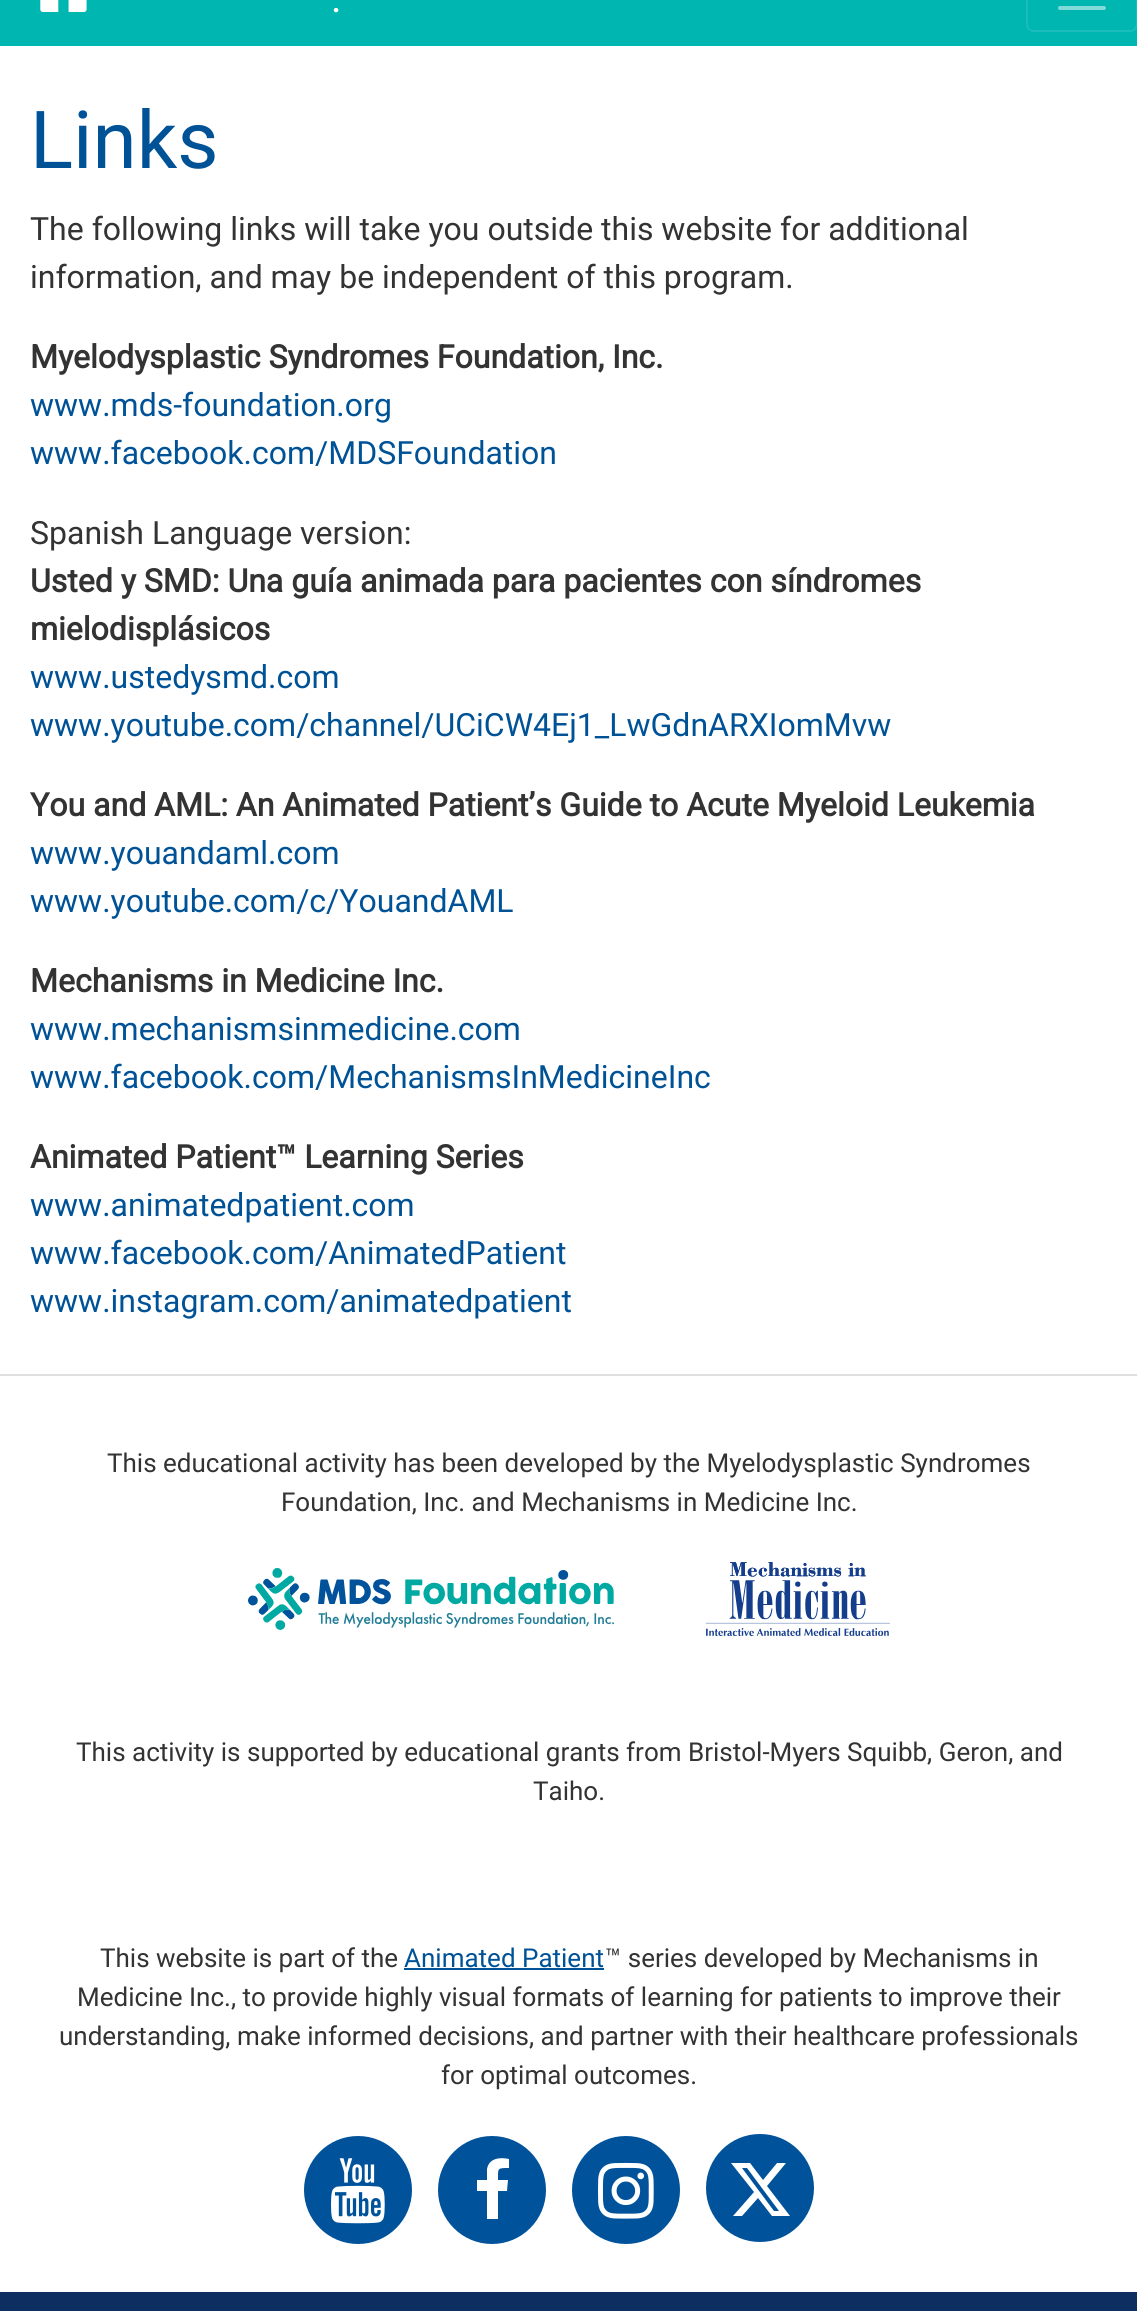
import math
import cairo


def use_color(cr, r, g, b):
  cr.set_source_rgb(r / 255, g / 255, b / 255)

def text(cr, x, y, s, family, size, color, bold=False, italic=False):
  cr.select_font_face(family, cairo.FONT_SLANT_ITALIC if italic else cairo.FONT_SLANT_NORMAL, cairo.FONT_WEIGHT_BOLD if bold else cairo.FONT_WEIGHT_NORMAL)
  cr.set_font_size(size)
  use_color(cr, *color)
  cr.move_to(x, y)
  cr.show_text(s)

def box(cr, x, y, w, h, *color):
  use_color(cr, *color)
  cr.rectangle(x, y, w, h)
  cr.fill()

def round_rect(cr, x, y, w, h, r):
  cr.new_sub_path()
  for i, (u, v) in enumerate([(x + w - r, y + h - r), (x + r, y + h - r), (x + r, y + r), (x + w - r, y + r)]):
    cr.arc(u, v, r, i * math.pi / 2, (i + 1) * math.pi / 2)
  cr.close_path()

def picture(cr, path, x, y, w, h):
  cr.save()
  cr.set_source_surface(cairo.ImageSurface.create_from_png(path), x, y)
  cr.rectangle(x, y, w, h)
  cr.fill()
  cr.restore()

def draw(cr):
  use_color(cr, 255, 255, 255)
  cr.paint()
  box(cr, 0, 0, 1137, 46, 0, 182, 177)
  picture(cr, "img_01.png", 40, 0, 47, 12)
  round_rect(cr, 1027, -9, 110, 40, 7)
  use_color(cr, 26, 189, 185)
  cr.stroke()
  cr.new_path()
  cr.move_to(1060, -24)
  cr.line_to(1104, -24)
  cr.move_to(1060, -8)
  cr.line_to(1104, -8)
  cr.move_to(1060, 8)
  cr.line_to(1104, 8)
  use_color(cr, 128, 219, 216)
  cr.set_line_width(4)
  cr.set_line_cap(cairo.LINE_CAP_ROUND)
  cr.stroke()
  box(cr, 0, 1374, 1137, 2, 223, 223, 223)
  picture(cr, "img_02.png", 248, 1568, 366, 62)
  picture(cr, "img_03.png", 706, 1562, 184, 74)
  box(cr, 404, 1968, 200, 2, 0, 82, 150)
  use_color(cr, 0, 82, 155)
  cr.arc(358, 2190, 53, 0, 2 * math.pi)
  cr.fill_preserve()
  cr.set_line_width(2)
  cr.set_line_cap(cairo.LINE_CAP_BUTT)
  cr.stroke()
  picture(cr, "img_04.png", 331, 2158, 54, 66)
  cr.arc(492, 2190, 53, 0, 2 * math.pi)
  cr.fill_preserve()
  cr.stroke()
  use_color(cr, 255, 255, 255)
  cr.new_path()
  cr.move_to(509, 2159)
  cr.line_to(509, 2168)
  cr.curve_to(497, 2168, 498, 2168, 498, 2180)
  cr.line_to(508, 2180)
  cr.line_to(507, 2191)
  cr.line_to(498, 2191)
  cr.line_to(498, 2219)
  cr.line_to(487, 2219)
  cr.line_to(487, 2191)
  cr.line_to(477, 2191)
  cr.line_to(477, 2180)
  cr.line_to(487, 2180)
  cr.line_to(487, 2169)
  cr.curve_to(489, 2158, 500, 2157, 509, 2159)
  cr.close_path()
  cr.fill()
  use_color(cr, 0, 82, 155)
  cr.arc(626, 2190, 53, 0, 2 * math.pi)
  cr.fill_preserve()
  cr.stroke()
  picture(cr, "img_05.png", 598, 2162, 56, 57)
  cr.arc(760, 2188, 53, 0, 2 * math.pi)
  cr.fill_preserve()
  cr.stroke()
  use_color(cr, 255, 255, 255)
  cr.new_path()
  cr.move_to(777, 2163)
  cr.line_to(786, 2163)
  cr.line_to(767, 2186)
  cr.line_to(790, 2216)
  cr.line_to(772, 2216)
  cr.line_to(758, 2198)
  cr.line_to(742, 2216)
  cr.line_to(733, 2216)
  cr.line_to(754, 2192)
  cr.line_to(731, 2163)
  cr.line_to(750, 2163)
  cr.line_to(763, 2180)
  cr.close_path()
  cr.move_to(774, 2211)
  cr.line_to(779, 2211)
  cr.line_to(747, 2168)
  cr.line_to(742, 2168)
  cr.close_path()
  cr.fill()
  box(cr, 0, 2292, 1137, 19, 12, 46, 96)
  text(cr, 331, 12, ".", "Roboto", 40, (255, 255, 255))
  text(cr, 30, 168, "Links", "Roboto", 80, (0, 82, 150))
  text(cr, 30, 240, "The following links will take you outside this website for additional", "Roboto", 32, (51, 51, 51))
  text(cr, 30, 288, "information, and may be independent of this program.", "Roboto", 32, (51, 51, 51))
  text(cr, 30, 368, "Myelodysplastic Syndromes Foundation, Inc.", "Roboto", 32, (51, 51, 51), bold=True)
  text(cr, 30, 416, "www.mds-foundation.org", "Roboto", 32, (0, 82, 150))
  text(cr, 30, 464, "www.facebook.com/MDSFoundation", "Roboto", 32, (0, 82, 150))
  text(cr, 30, 544, "Spanish Language version:", "Roboto", 32, (51, 51, 51))
  text(cr, 30, 592, "Usted y SMD: Una guía animada para pacientes con síndromes", "Roboto", 32, (51, 51, 51), bold=True)
  text(cr, 30, 640, "mielodisplásicos", "Roboto", 32, (51, 51, 51), bold=True)
  text(cr, 30, 688, "www.ustedysmd.com", "Roboto", 32, (0, 82, 150))
  text(cr, 30, 736, "www.youtube.com/channel/UCiCW4Ej1_LwGdnARXIomMvw", "Roboto", 32, (0, 82, 150))
  text(cr, 30, 816, "You and AML: An Animated Patient’s Guide to Acute Myeloid Leukemia", "Roboto", 32, (51, 51, 51), bold=True)
  text(cr, 30, 864, "www.youandaml.com", "Roboto", 32, (0, 82, 150))
  text(cr, 30, 912, "www.youtube.com/c/YouandAML", "Roboto", 32, (0, 82, 150))
  text(cr, 30, 992, "Mechanisms in Medicine Inc.", "Roboto", 32, (51, 51, 51), bold=True)
  text(cr, 30, 1040, "www.mechanismsinmedicine.com", "Roboto", 32, (0, 82, 150))
  text(cr, 30, 1088, "www.facebook.com/MechanismsInMedicineInc", "Roboto", 32, (0, 82, 150))
  text(cr, 30, 1168, "Animated Patient™ Learning Series", "Roboto", 32, (51, 51, 51), bold=True)
  text(cr, 30, 1216, "www.animatedpatient.com", "Roboto", 32, (0, 82, 150))
  text(cr, 30, 1264, "www.facebook.com/AnimatedPatient", "Roboto", 32, (0, 82, 150))
  text(cr, 30, 1312, "www.instagram.com/animatedpatient", "Roboto", 32, (0, 82, 150))
  text(cr, 107, 1472, "This educational activity has been developed by the Myelodysplastic Syndromes", "Roboto", 26, (51, 51, 51))
  text(cr, 281, 1511, "Foundation, Inc. and Mechanisms in Medicine Inc.", "Roboto", 26, (51, 51, 51))
  text(cr, 76, 1761, "This activity is supported by educational grants from Bristol-Myers Squibb, Geron, and", "Roboto", 26, (51, 51, 51))
  text(cr, 533, 1800, "Taiho.", "Roboto", 26, (51, 51, 51))
  text(cr, 100, 1967, "This website is part of the", "Roboto", 26, (51, 51, 51))
  text(cr, 404, 1967, "Animated Patient", "Roboto", 26, (0, 82, 150))
  text(cr, 605, 1967, "™ series developed by Mechanisms in", "Roboto", 26, (51, 51, 51))
  text(cr, 77, 2006, "Medicine Inc., to provide highly visual formats of learning for patients to improve their", "Roboto", 26, (51, 51, 51))
  text(cr, 59, 2045, "understanding, make informed decisions, and partner with their healthcare professionals", "Roboto", 26, (51, 51, 51))
  text(cr, 441, 2084, "for optimal outcomes.", "Roboto", 26, (51, 51, 51))


surface = cairo.ImageSurface(cairo.FORMAT_RGB24, 1137, 2311)
cr = cairo.Context(surface)
options = cairo.FontOptions()
options.set_hint_metrics(cairo.HINT_METRICS_OFF)
options.set_hint_style(cairo.HINT_STYLE_NONE)
cr.set_font_options(options)
cr.set_miter_limit(4)
draw(cr)
surface.write_to_png("out.png")
